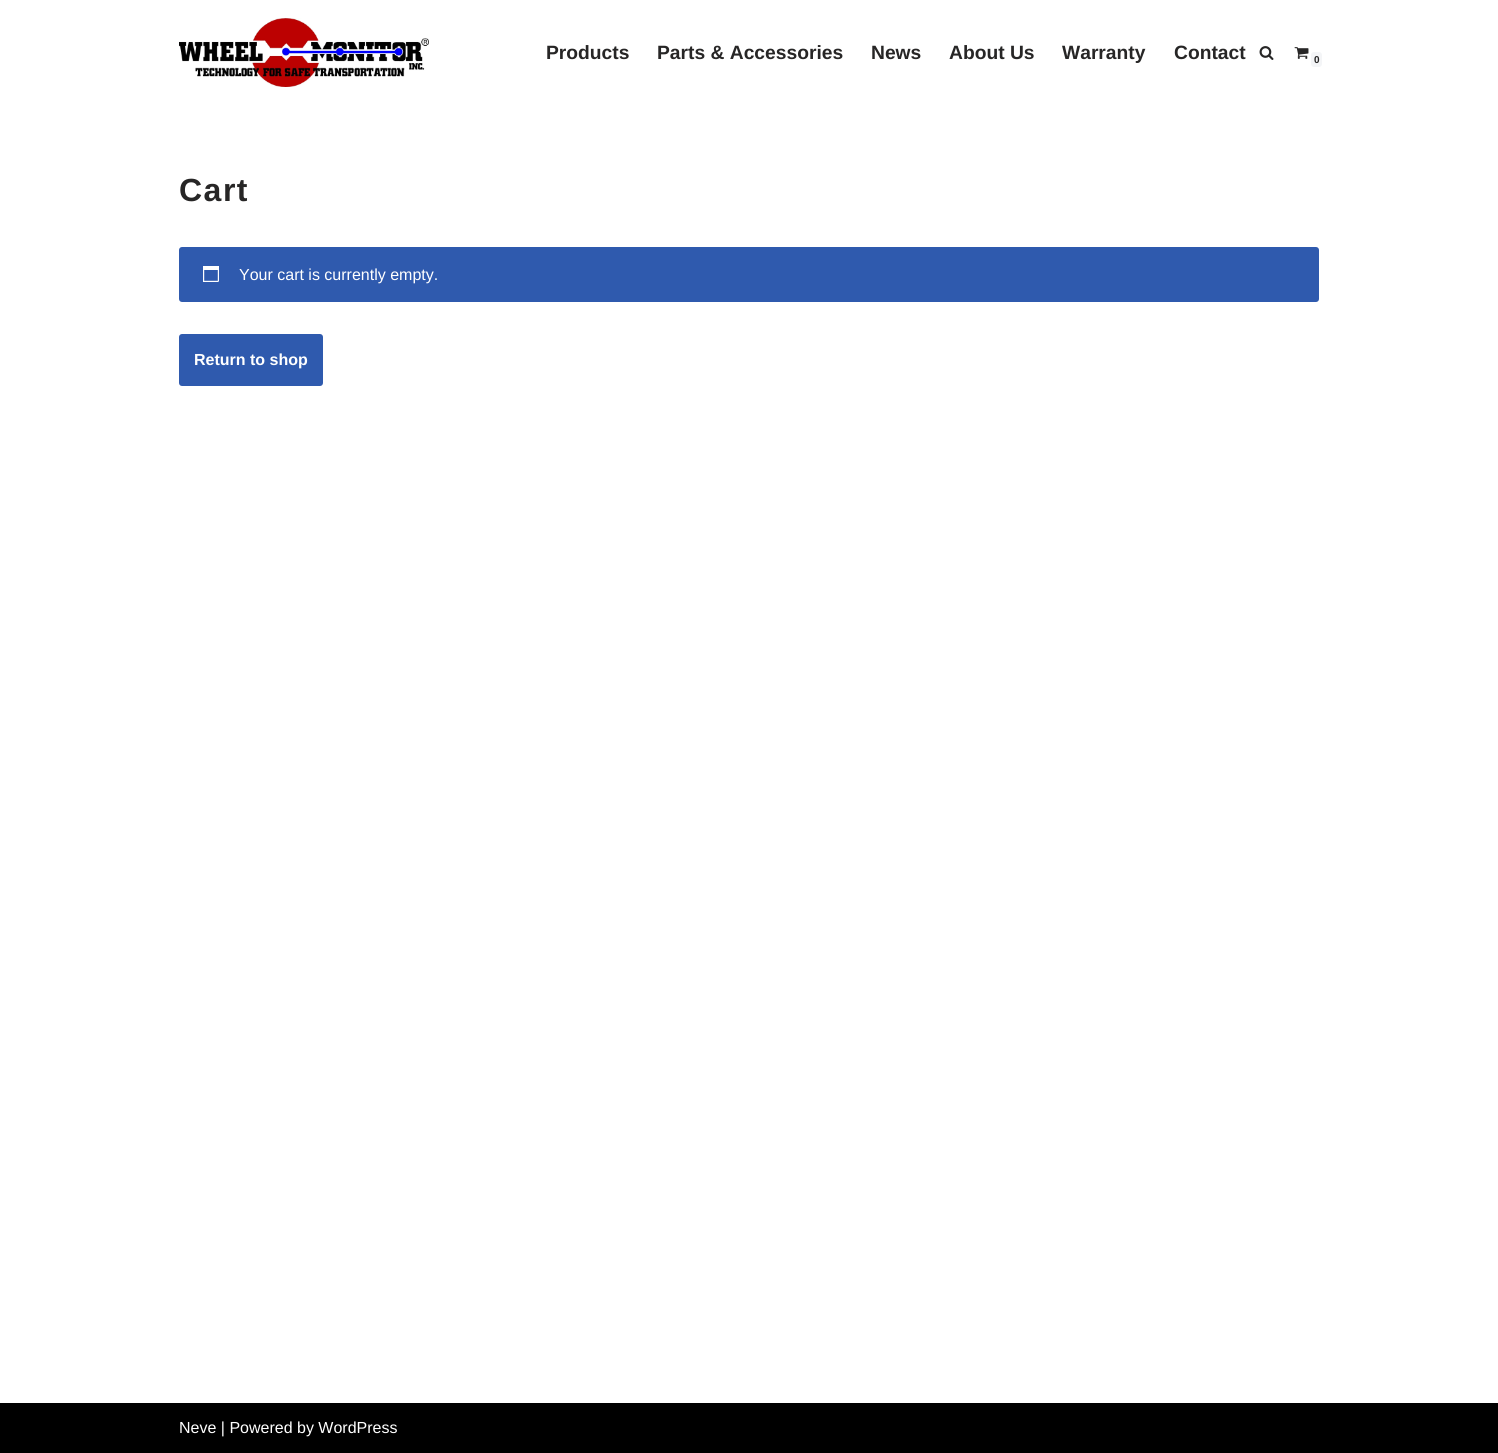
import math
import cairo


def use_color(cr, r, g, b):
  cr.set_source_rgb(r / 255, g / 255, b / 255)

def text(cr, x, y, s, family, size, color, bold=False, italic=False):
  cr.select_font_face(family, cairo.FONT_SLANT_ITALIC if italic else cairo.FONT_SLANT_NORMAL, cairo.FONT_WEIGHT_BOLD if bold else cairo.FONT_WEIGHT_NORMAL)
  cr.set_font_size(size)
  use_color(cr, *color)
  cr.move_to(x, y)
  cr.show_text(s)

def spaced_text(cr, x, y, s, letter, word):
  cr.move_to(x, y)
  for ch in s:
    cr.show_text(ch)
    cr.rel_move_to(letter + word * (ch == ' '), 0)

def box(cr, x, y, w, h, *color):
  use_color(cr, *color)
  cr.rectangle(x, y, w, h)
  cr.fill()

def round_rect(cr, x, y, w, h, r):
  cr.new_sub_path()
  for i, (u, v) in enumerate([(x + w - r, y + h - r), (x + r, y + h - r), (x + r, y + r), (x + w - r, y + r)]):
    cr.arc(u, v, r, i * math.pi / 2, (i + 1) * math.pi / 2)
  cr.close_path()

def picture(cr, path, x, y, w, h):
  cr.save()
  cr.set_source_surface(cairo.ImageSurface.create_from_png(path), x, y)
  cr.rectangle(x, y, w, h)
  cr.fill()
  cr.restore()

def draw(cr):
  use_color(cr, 255, 255, 255)
  cr.paint()
  picture(cr, "img_01.png", 179, 18, 250, 69)
  picture(cr, "img_02.png", 1259, 46, 15, 14)
  picture(cr, "img_03.png", 1294, 47, 15, 12)
  use_color(cr, 244, 245, 247)
  round_rect(cr, 1311, 52, 11, 15, 3)
  cr.fill()
  use_color(cr, 47, 90, 174)
  round_rect(cr, 179, 247, 1140, 55, 3)
  cr.fill()
  picture(cr, "img_04.png", 203, 266, 16, 16)
  round_rect(cr, 179, 334, 144, 52, 3)
  cr.fill()
  box(cr, 0, 1403, 1498, 50, 0, 0, 0)
  text(cr, 546, 59, "Products", "Liberation Sans", 19.25, (39, 38, 38), bold=True)
  text(cr, 657, 59, "Parts & Accessories", "Liberation Sans", 19.25, (39, 38, 38), bold=True)
  text(cr, 871, 59, "News", "Liberation Sans", 19.25, (39, 38, 38), bold=True)
  text(cr, 949, 59, "About Us", "Liberation Sans", 19.25, (39, 38, 38), bold=True)
  text(cr, 1062, 59, "Warranty", "Liberation Sans", 19.25, (39, 38, 38), bold=True)
  text(cr, 1174, 59, "Contact", "Liberation Sans", 19.25, (39, 38, 38), bold=True)
  text(cr, 1314, 63, "0", "Liberation Sans", 10, (39, 38, 38), bold=True)
  cr.set_font_size(32)
  spaced_text(cr, 179, 201, "Cart", 1.5, 0)
  text(cr, 239, 280, "Your cart is currently empty.", "Liberation Sans", 16, (255, 255, 255))
  text(cr, 194, 365, "Return to shop", "Liberation Sans", 16, (255, 255, 255), bold=True)
  text(cr, 179, 1433, "Neve | Powered by WordPress", "Liberation Sans", 16, (255, 255, 255))


surface = cairo.ImageSurface(cairo.FORMAT_RGB24, 1498, 1453)
cr = cairo.Context(surface)
options = cairo.FontOptions()
options.set_hint_metrics(cairo.HINT_METRICS_OFF)
options.set_hint_style(cairo.HINT_STYLE_NONE)
cr.set_font_options(options)
cr.set_miter_limit(4)
draw(cr)
surface.write_to_png("out.png")
